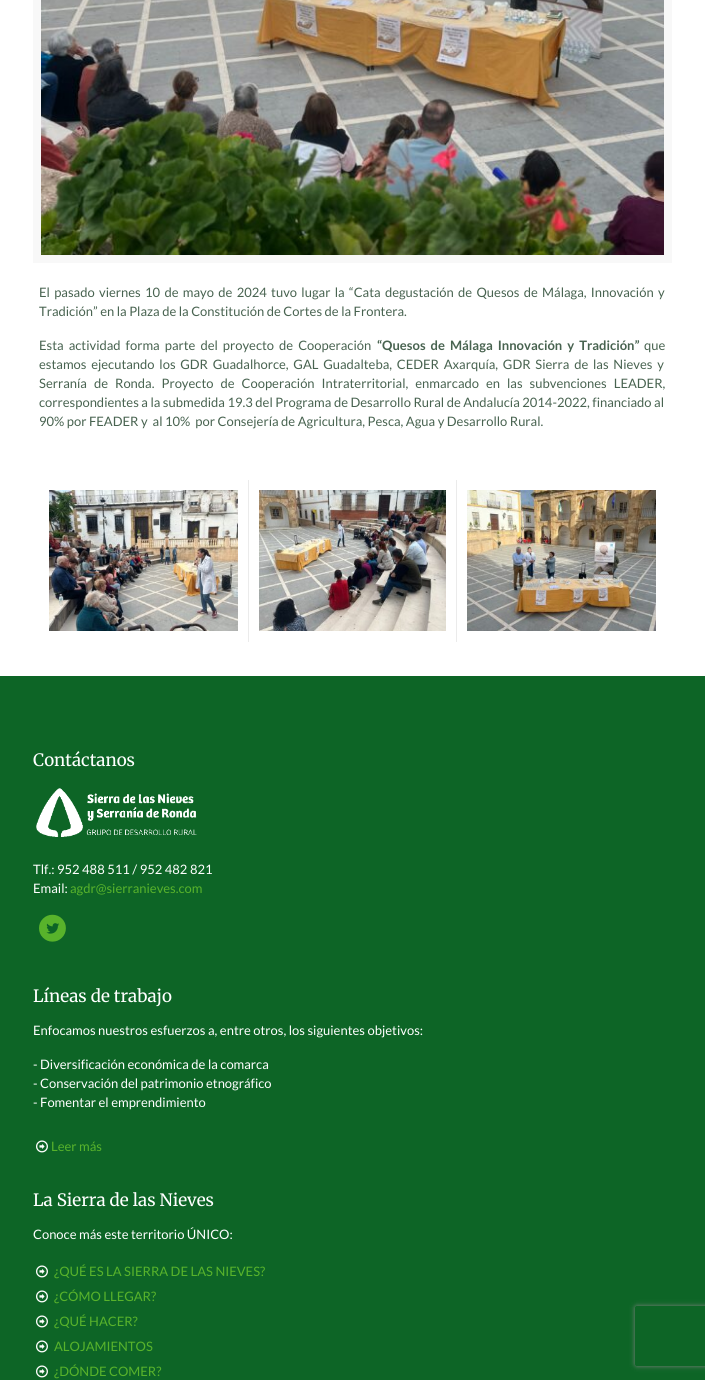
import math
import cairo


def use_color(cr, r, g, b):
  cr.set_source_rgb(r / 255, g / 255, b / 255)

def text(cr, x, y, s, family, size, color, bold=False, italic=False):
  cr.select_font_face(family, cairo.FONT_SLANT_ITALIC if italic else cairo.FONT_SLANT_NORMAL, cairo.FONT_WEIGHT_BOLD if bold else cairo.FONT_WEIGHT_NORMAL)
  cr.set_font_size(size)
  use_color(cr, *color)
  cr.move_to(x, y)
  cr.show_text(s)

def spaced_text(cr, x, y, s, letter, word):
  cr.move_to(x, y)
  for ch in s:
    cr.show_text(ch)
    cr.rel_move_to(letter + word * (ch == ' '), 0)

def box(cr, x, y, w, h, *color):
  use_color(cr, *color)
  cr.rectangle(x, y, w, h)
  cr.fill()

def round_rect(cr, x, y, w, h, r):
  cr.new_sub_path()
  for i, (u, v) in enumerate([(x + w - r, y + h - r), (x + r, y + h - r), (x + r, y + r), (x + w - r, y + r)]):
    cr.arc(u, v, r, i * math.pi / 2, (i + 1) * math.pi / 2)
  cr.close_path()

def shadow(cr, x, y, w, h, r, blur, alpha):
  cr.push_group_with_content(cairo.CONTENT_ALPHA)
  cr.set_operator(cairo.OPERATOR_SOURCE)
  for i in range(15, -16, -2):
    e = blur * i / 6
    if min(w, h) + 2 * e > 0:
      cr.set_source_rgba(0, 0, 0, alpha * math.erfc((i - 1) / 8.5) / 2)
      round_rect(cr, x - e, y - e, w + 2 * e, h + 2 * e, max(0, min(r + e + blur * .6, min(w, h) / 2 + e)))
      cr.fill()
  cr.mask(cr.pop_group())

def picture(cr, path, x, y, w, h):
  cr.save()
  cr.set_source_surface(cairo.ImageSurface.create_from_png(path), x, y)
  cr.rectangle(x, y, w, h)
  cr.fill()
  cr.restore()

def draw(cr):
  use_color(cr, 255, 255, 255)
  cr.paint()
  cr.rectangle(37, -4, 631, 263)
  use_color(cr, 248, 248, 248)
  cr.set_line_width(8)
  cr.stroke()
  picture(cr, "img_01.png", 41, 0, 623, 255)
  box(cr, 248, 480, 1, 162, 235, 235, 235)
  picture(cr, "img_02.png", 49, 490, 189, 141)
  box(cr, 456, 480, 1, 162, 235, 235, 235)
  picture(cr, "img_03.png", 259, 490, 187, 141)
  picture(cr, "img_04.png", 467, 490, 189, 141)
  box(cr, 0, 676, 705, 704, 13, 101, 38)
  picture(cr, "img_05.png", 36, 788, 161, 49)
  picture(cr, "img_06.png", 39, 914, 27, 28)
  picture(cr, "img_07.png", 36, 1140, 12, 13)
  picture(cr, "img_07.png", 36, 1265, 12, 13)
  picture(cr, "img_07.png", 36, 1290, 12, 13)
  picture(cr, "img_07.png", 36, 1315, 12, 13)
  picture(cr, "img_07.png", 36, 1340, 12, 13)
  picture(cr, "img_07.png", 36, 1365, 12, 13)
  cr.save()
  cr.set_fill_rule(cairo.FILL_RULE_EVEN_ODD)
  cr.new_path()
  cr.move_to(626, 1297)
  cr.line_to(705, 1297)
  cr.line_to(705, 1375)
  cr.line_to(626, 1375)
  cr.close_path()
  cr.move_to(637, 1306)
  cr.line_to(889, 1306)
  cr.curve_to(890, 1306, 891, 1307, 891, 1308)
  cr.line_to(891, 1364)
  cr.curve_to(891, 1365, 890, 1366, 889, 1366)
  cr.line_to(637, 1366)
  cr.curve_to(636, 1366, 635, 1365, 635, 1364)
  cr.line_to(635, 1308)
  cr.curve_to(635, 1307, 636, 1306, 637, 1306)
  cr.close_path()
  cr.clip()
  use_color(cr, 128, 128, 128)
  shadow(cr, 635, 1306, 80, 60, 2, 2.5, 1)
  cr.restore()
  cr.select_font_face("Lato")
  cr.set_font_size(13)
  use_color(cr, 72, 99, 80)
  spaced_text(cr, 39, 297, "El pasado viernes 10 de mayo de 2024 tuvo lugar la “Cata degustación de Quesos de Málaga, Innovación y", 0, 1.8)
  text(cr, 39, 316, "Tradición” en la Plaza de la Constitución de Cortes de la Frontera.", "Lato", 13, (72, 99, 80))
  spaced_text(cr, 39, 350, "Esta actividad forma parte del proyecto de Cooperación", 0, 2.5)
  cr.select_font_face("Lato", cairo.FONT_SLANT_NORMAL, cairo.FONT_WEIGHT_BOLD)
  spaced_text(cr, 377, 350, "“Quesos de Málaga Innovación y Tradición”", 0, 2.5)
  text(cr, 644, 350, "que", "Lato", 13, (72, 99, 80))
  spaced_text(cr, 39, 369, "estamos ejecutando los GDR Guadalhorce, GAL Guadalteba, CEDER Axarquía, GDR Sierra de las Nieves y", 0, 2.25)
  spaced_text(cr, 39, 388, "Serranía de Ronda. Proyecto de Cooperación Intraterritorial, enmarcado en las subvenciones LEADER,", 0, 4.5)
  text(cr, 39, 407, "correspondientes a la submedida 19.3 del Programa de Desarrollo Rural de Andalucía 2014-2022, financiado al", "Lato", 13, (72, 99, 80))
  text(cr, 39, 426, "90% por FEADER y  al 10%  por Consejería de Agricultura, Pesca, Agua y Desarrollo Rural.", "Lato", 13, (72, 99, 80))
  text(cr, 33, 766, "Contáctanos", "Merriweather", 17, (255, 255, 255))
  text(cr, 33, 874, "Tlf.: 952 488 511 / 952 482 821", "Lato", 13, (255, 255, 255))
  text(cr, 33, 893, "Email:", "Lato", 13, (255, 255, 255))
  text(cr, 70, 893, "agdr@sierranieves.com", "Lato", 13, (88, 179, 43))
  text(cr, 33, 1002, "Líneas de trabajo", "Merriweather", 17, (255, 255, 255))
  text(cr, 33, 1035, "Enfocamos nuestros esfuerzos a, entre otros, los siguientes objetivos:", "Lato", 13, (255, 255, 255))
  text(cr, 33, 1069, "- Diversificación económica de la comarca", "Lato", 13, (255, 255, 255))
  text(cr, 33, 1088, "- Conservación del patrimonio etnográfico", "Lato", 13, (255, 255, 255))
  text(cr, 33, 1107, "- Fomentar el emprendimiento", "Lato", 13, (255, 255, 255))
  text(cr, 51, 1151, "Leer más", "Lato", 13, (88, 179, 43))
  text(cr, 33, 1206, "La Sierra de las Nieves", "Merriweather", 17, (255, 255, 255))
  text(cr, 33, 1239, "Conoce más este territorio ÚNICO:", "Lato", 13, (255, 255, 255))
  text(cr, 54, 1276, "¿QUÉ ES LA SIERRA DE LAS NIEVES?", "Lato", 13, (88, 179, 43))
  text(cr, 54, 1301, "¿CÓMO LLEGAR?", "Lato", 13, (88, 179, 43))
  text(cr, 54, 1326, "¿QUÉ HACER?", "Lato", 13, (88, 179, 43))
  text(cr, 54, 1351, "ALOJAMIENTOS", "Lato", 13, (88, 179, 43))
  text(cr, 54, 1376, "¿DÓNDE COMER?", "Lato", 13, (88, 179, 43))


surface = cairo.ImageSurface(cairo.FORMAT_RGB24, 705, 1380)
cr = cairo.Context(surface)
options = cairo.FontOptions()
options.set_hint_metrics(cairo.HINT_METRICS_OFF)
options.set_hint_style(cairo.HINT_STYLE_NONE)
cr.set_font_options(options)
cr.set_miter_limit(4)
draw(cr)
surface.write_to_png("out.png")
